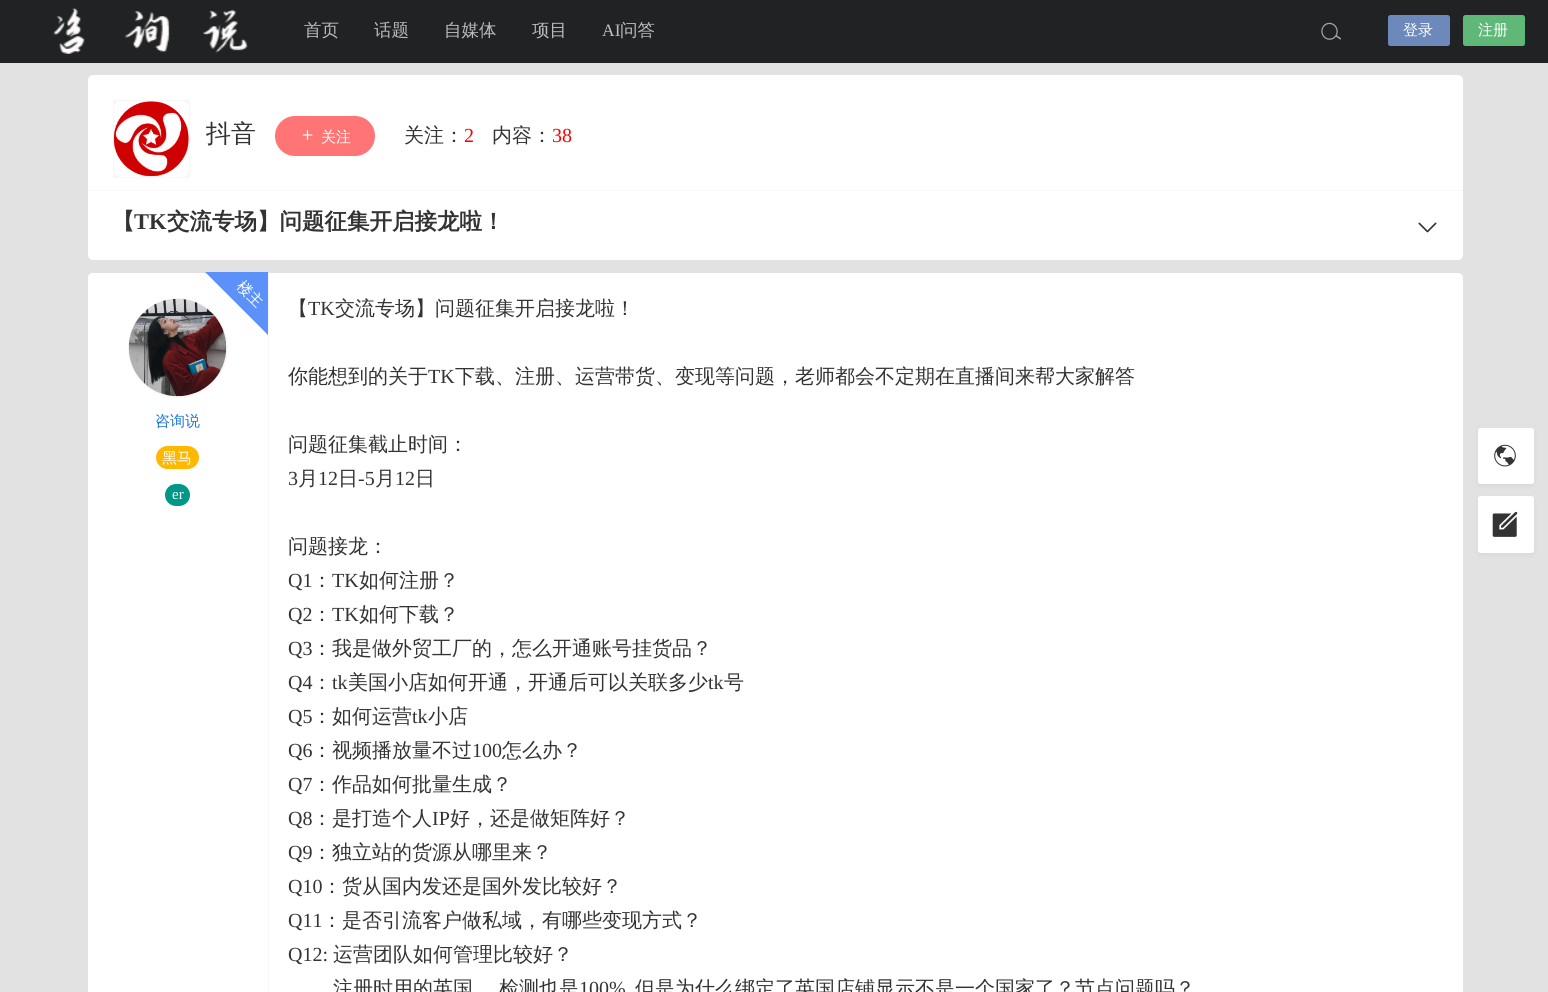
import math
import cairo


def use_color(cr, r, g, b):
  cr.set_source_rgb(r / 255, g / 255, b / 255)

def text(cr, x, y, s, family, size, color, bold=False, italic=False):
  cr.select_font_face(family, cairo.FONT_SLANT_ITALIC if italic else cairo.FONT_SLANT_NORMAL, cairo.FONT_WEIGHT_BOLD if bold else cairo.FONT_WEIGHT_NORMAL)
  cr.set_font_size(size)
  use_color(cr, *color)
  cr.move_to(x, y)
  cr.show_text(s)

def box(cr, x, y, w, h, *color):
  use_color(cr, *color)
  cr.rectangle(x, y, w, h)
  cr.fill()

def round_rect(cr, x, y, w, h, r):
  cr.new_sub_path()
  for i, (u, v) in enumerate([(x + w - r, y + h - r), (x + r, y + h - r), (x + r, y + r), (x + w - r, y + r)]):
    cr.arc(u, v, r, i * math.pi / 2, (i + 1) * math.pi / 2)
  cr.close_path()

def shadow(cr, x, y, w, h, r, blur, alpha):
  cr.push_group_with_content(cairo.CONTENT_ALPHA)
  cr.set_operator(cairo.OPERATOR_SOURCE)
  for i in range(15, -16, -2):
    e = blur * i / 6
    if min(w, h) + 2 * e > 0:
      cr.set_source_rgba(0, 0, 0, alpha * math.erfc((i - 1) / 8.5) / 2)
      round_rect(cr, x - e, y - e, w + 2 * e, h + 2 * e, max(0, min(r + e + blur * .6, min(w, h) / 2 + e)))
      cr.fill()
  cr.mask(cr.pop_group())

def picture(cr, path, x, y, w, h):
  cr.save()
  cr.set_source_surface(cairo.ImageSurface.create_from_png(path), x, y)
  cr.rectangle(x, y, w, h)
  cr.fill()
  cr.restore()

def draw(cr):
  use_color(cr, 226, 226, 226)
  cr.paint()
  box(cr, 0, 0, 1548, 63, 32, 34, 35)
  picture(cr, "img_01.png", 53, 7, 195, 47)
  picture(cr, "img_02.png", 1321, 22, 21, 18)
  use_color(cr, 109, 137, 187)
  round_rect(cr, 1388, 15, 62, 31, 2.5)
  cr.fill()
  use_color(cr, 95, 184, 120)
  round_rect(cr, 1463, 15, 62, 31, 2.5)
  cr.fill()
  use_color(cr, 255, 255, 255)
  round_rect(cr, 88, 75, 1375, 185, 5)
  cr.fill()
  box(cr, 88, 190, 1375, 1, 247, 247, 247)
  box(cr, 113, 100, 77, 78, 247, 247, 247)
  use_color(cr, 255, 255, 255)
  round_rect(cr, 113.5, 100.5, 76, 77, 7.5)
  cr.fill_preserve()
  use_color(cr, 247, 247, 247)
  cr.set_line_width(1)
  cr.stroke()
  picture(cr, "img_03.png", 113, 101, 76, 76)
  use_color(cr, 255, 117, 117)
  round_rect(cr, 275, 116, 100, 40, 20)
  cr.fill()
  picture(cr, "img_04.png", 302, 130, 11, 10)
  picture(cr, "img_05.png", 1418, 222, 19, 11)
  use_color(cr, 255, 255, 255)
  round_rect(cr, 88, 273, 1375, 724, 5)
  cr.fill()
  cr.new_path()
  cr.move_to(93, 273)
  cr.line_to(269, 273)
  cr.line_to(269, 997)
  cr.line_to(93, 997)
  cr.curve_to(90, 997, 88, 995, 88, 992)
  cr.line_to(88, 278)
  cr.curve_to(88, 275, 90, 273, 93, 273)
  cr.close_path()
  cr.fill()
  box(cr, 268, 273, 1, 719, 247, 247, 247)
  cr.arc(178, 348, 50, 0, 2 * math.pi)
  cr.fill()
  picture(cr, "img_06.png", 128, 298, 99, 99)
  use_color(cr, 91, 145, 249)
  cr.new_path()
  cr.move_to(205, 272)
  cr.line_to(268, 272)
  cr.line_to(268, 335)
  cr.close_path()
  cr.fill()
  use_color(cr, 255, 184, 0)
  round_rect(cr, 156, 446, 43, 23, 11.5)
  cr.fill()
  use_color(cr, 0, 150, 136)
  round_rect(cr, 165, 484, 25, 22, 11)
  cr.fill()
  use_color(cr, 0, 0, 0)
  shadow(cr, 1478, 430, 56, 56, 2.5, 2.5, 0.05)
  use_color(cr, 255, 255, 255)
  round_rect(cr, 1478, 428, 56, 56, 2.5)
  cr.fill()
  picture(cr, "img_07.png", 1494, 444, 22, 23)
  use_color(cr, 0, 0, 0)
  shadow(cr, 1478, 499, 56, 56, 2.5, 2.5, 0.05)
  use_color(cr, 255, 255, 255)
  round_rect(cr, 1478, 496, 56, 57, 2.5)
  cr.fill()
  picture(cr, "img_08.png", 1492, 511, 26, 26)
  text(cr, 304, 36, "首页", "WenQuanYi Zen Hei Medium", 17.5, (188, 188, 188))
  text(cr, 374, 36, "话题", "WenQuanYi Zen Hei Medium", 17.5, (188, 188, 188))
  text(cr, 444, 36, "自媒体", "WenQuanYi Zen Hei Medium", 17.5, (188, 188, 188))
  text(cr, 532, 36, "项目", "WenQuanYi Zen Hei Medium", 17.5, (188, 188, 188))
  text(cr, 602, 36, "AI", "Liberation Serif", 17.5, (188, 188, 188))
  text(cr, 620, 36, "问答", "WenQuanYi Zen Hei Medium", 17.5, (188, 188, 188))
  text(cr, 1403, 35, "登录", "WenQuanYi Zen Hei Medium", 15, (255, 255, 255))
  text(cr, 1478, 35, "注册", "WenQuanYi Zen Hei Medium", 15, (255, 255, 255))
  text(cr, 206, 142, "抖音", "WenQuanYi Zen Hei Medium", 25, (51, 51, 51))
  text(cr, 321, 142, "关注", "WenQuanYi Zen Hei Medium", 15, (255, 255, 255))
  text(cr, 404, 142, "关注：", "WenQuanYi Zen Hei Medium", 20, (51, 51, 51))
  text(cr, 464, 142, "2", "Liberation Serif", 20, (255, 0, 0))
  text(cr, 492, 142, "内容：", "WenQuanYi Zen Hei Medium", 20, (51, 51, 51))
  text(cr, 552, 142, "38", "Liberation Serif", 20, (255, 0, 0))
  text(cr, 112, 229, "【", "WenQuanYi Zen Hei", 22.5, (51, 51, 51), bold=True)
  text(cr, 134, 229, "TK", "Liberation Serif", 22.5, (51, 51, 51), bold=True)
  text(cr, 167, 229, "交流专场】问题征集开启接龙啦！", "WenQuanYi Zen Hei", 22.5, (51, 51, 51), bold=True)
  cr.save()
  cr.translate(236, 287)
  cr.rotate(45 * math.pi / 180)
  text(cr, 0, 0, "楼主", "WenQuanYi Zen Hei Medium", 15, (255, 255, 255))
  cr.restore()
  text(cr, 155, 426, "咨询说", "WenQuanYi Zen Hei Medium", 15, (29, 119, 212))
  text(cr, 162, 463, "黑马", "WenQuanYi Zen Hei Medium", 15, (255, 255, 255))
  text(cr, 172, 499, "er", "Liberation Serif", 15, (255, 255, 255))
  text(cr, 288, 315, "【", "WenQuanYi Zen Hei Medium", 20, (51, 51, 51))
  text(cr, 308, 315, "TK", "Liberation Serif", 20, (51, 51, 51))
  text(cr, 335, 315, "交流专场】问题征集开启接龙啦！", "WenQuanYi Zen Hei Medium", 20, (51, 51, 51))
  text(cr, 288, 383, "你能想到的关于", "WenQuanYi Zen Hei Medium", 20, (51, 51, 51))
  text(cr, 428, 383, "TK", "Liberation Serif", 20, (51, 51, 51))
  text(cr, 455, 383, "下载、注册、运营带货、变现等问题，老师都会不定期在直播间来帮大家解答", "WenQuanYi Zen Hei Medium", 20, (51, 51, 51))
  text(cr, 288, 451, "问题征集截止时间：", "WenQuanYi Zen Hei Medium", 20, (51, 51, 51))
  text(cr, 288, 485, "3", "Liberation Serif", 20, (51, 51, 51))
  text(cr, 298, 485, "月", "WenQuanYi Zen Hei Medium", 20, (51, 51, 51))
  text(cr, 318, 485, "12", "Liberation Serif", 20, (51, 51, 51))
  text(cr, 338, 485, "日", "WenQuanYi Zen Hei Medium", 20, (51, 51, 51))
  text(cr, 358, 485, "-5", "Liberation Serif", 20, (51, 51, 51))
  text(cr, 375, 485, "月", "WenQuanYi Zen Hei Medium", 20, (51, 51, 51))
  text(cr, 395, 485, "12", "Liberation Serif", 20, (51, 51, 51))
  text(cr, 415, 485, "日", "WenQuanYi Zen Hei Medium", 20, (51, 51, 51))
  text(cr, 288, 553, "问题接龙：", "WenQuanYi Zen Hei Medium", 20, (51, 51, 51))
  text(cr, 288, 587, "Q1", "Liberation Serif", 20, (51, 51, 51))
  text(cr, 312, 587, "：", "WenQuanYi Zen Hei Medium", 20, (51, 51, 51))
  text(cr, 332, 587, "TK", "Liberation Serif", 20, (51, 51, 51))
  text(cr, 359, 587, "如何注册？", "WenQuanYi Zen Hei Medium", 20, (51, 51, 51))
  text(cr, 288, 621, "Q2", "Liberation Serif", 20, (51, 51, 51))
  text(cr, 312, 621, "：", "WenQuanYi Zen Hei Medium", 20, (51, 51, 51))
  text(cr, 332, 621, "TK", "Liberation Serif", 20, (51, 51, 51))
  text(cr, 359, 621, "如何下载？", "WenQuanYi Zen Hei Medium", 20, (51, 51, 51))
  text(cr, 288, 655, "Q3", "Liberation Serif", 20, (51, 51, 51))
  text(cr, 312, 655, "：我是做外贸工厂的，怎么开通账号挂货品？", "WenQuanYi Zen Hei Medium", 20, (51, 51, 51))
  text(cr, 288, 689, "Q4", "Liberation Serif", 20, (51, 51, 51))
  text(cr, 312, 689, "：", "WenQuanYi Zen Hei Medium", 20, (51, 51, 51))
  text(cr, 332, 689, "tk", "Liberation Serif", 20, (51, 51, 51))
  text(cr, 348, 689, "美国小店如何开通，开通后可以关联多少", "WenQuanYi Zen Hei Medium", 20, (51, 51, 51))
  text(cr, 708, 689, "tk", "Liberation Serif", 20, (51, 51, 51))
  text(cr, 724, 689, "号", "WenQuanYi Zen Hei Medium", 20, (51, 51, 51))
  text(cr, 288, 723, "Q5", "Liberation Serif", 20, (51, 51, 51))
  text(cr, 312, 723, "：如何运营", "WenQuanYi Zen Hei Medium", 20, (51, 51, 51))
  text(cr, 412, 723, "tk", "Liberation Serif", 20, (51, 51, 51))
  text(cr, 428, 723, "小店", "WenQuanYi Zen Hei Medium", 20, (51, 51, 51))
  text(cr, 288, 757, "Q6", "Liberation Serif", 20, (51, 51, 51))
  text(cr, 312, 757, "：视频播放量不过", "WenQuanYi Zen Hei Medium", 20, (51, 51, 51))
  text(cr, 472, 757, "100", "Liberation Serif", 20, (51, 51, 51))
  text(cr, 502, 757, "怎么办？", "WenQuanYi Zen Hei Medium", 20, (51, 51, 51))
  text(cr, 288, 791, "Q7", "Liberation Serif", 20, (51, 51, 51))
  text(cr, 312, 791, "：作品如何批量生成？", "WenQuanYi Zen Hei Medium", 20, (51, 51, 51))
  text(cr, 288, 825, "Q8", "Liberation Serif", 20, (51, 51, 51))
  text(cr, 312, 825, "：是打造个人", "WenQuanYi Zen Hei Medium", 20, (51, 51, 51))
  text(cr, 432, 825, "IP", "Liberation Serif", 20, (51, 51, 51))
  text(cr, 450, 825, "好，还是做矩阵好？", "WenQuanYi Zen Hei Medium", 20, (51, 51, 51))
  text(cr, 288, 859, "Q9", "Liberation Serif", 20, (51, 51, 51))
  text(cr, 312, 859, "：独立站的货源从哪里来？", "WenQuanYi Zen Hei Medium", 20, (51, 51, 51))
  text(cr, 288, 893, "Q10", "Liberation Serif", 20, (51, 51, 51))
  text(cr, 322, 893, "：货从国内发还是国外发比较好？", "WenQuanYi Zen Hei Medium", 20, (51, 51, 51))
  text(cr, 288, 927, "Q11", "Liberation Serif", 20, (51, 51, 51))
  text(cr, 322, 927, "：是否引流客户做私域，有哪些变现方式？", "WenQuanYi Zen Hei Medium", 20, (51, 51, 51))
  text(cr, 288, 961, "Q12:", "Liberation Serif", 20, (51, 51, 51))
  text(cr, 333, 961, "运营团队如何管理比较好？", "WenQuanYi Zen Hei Medium", 20, (51, 51, 51))
  text(cr, 333, 995, "注册时用的英国", "WenQuanYi Zen Hei Medium", 20, (51, 51, 51))
  text(cr, 499, 995, "检测也是", "WenQuanYi Zen Hei Medium", 20, (51, 51, 51))
  text(cr, 579, 995, "100%", "Liberation Serif", 20, (51, 51, 51))
  text(cr, 635, 995, "但是为什么绑定了英国店铺显示不是一个国家了？节点问题吗？", "WenQuanYi Zen Hei Medium", 20, (51, 51, 51))


surface = cairo.ImageSurface(cairo.FORMAT_RGB24, 1548, 992)
cr = cairo.Context(surface)
options = cairo.FontOptions()
options.set_hint_metrics(cairo.HINT_METRICS_OFF)
options.set_hint_style(cairo.HINT_STYLE_NONE)
cr.set_font_options(options)
cr.set_miter_limit(4)
draw(cr)
surface.write_to_png("out.png")
